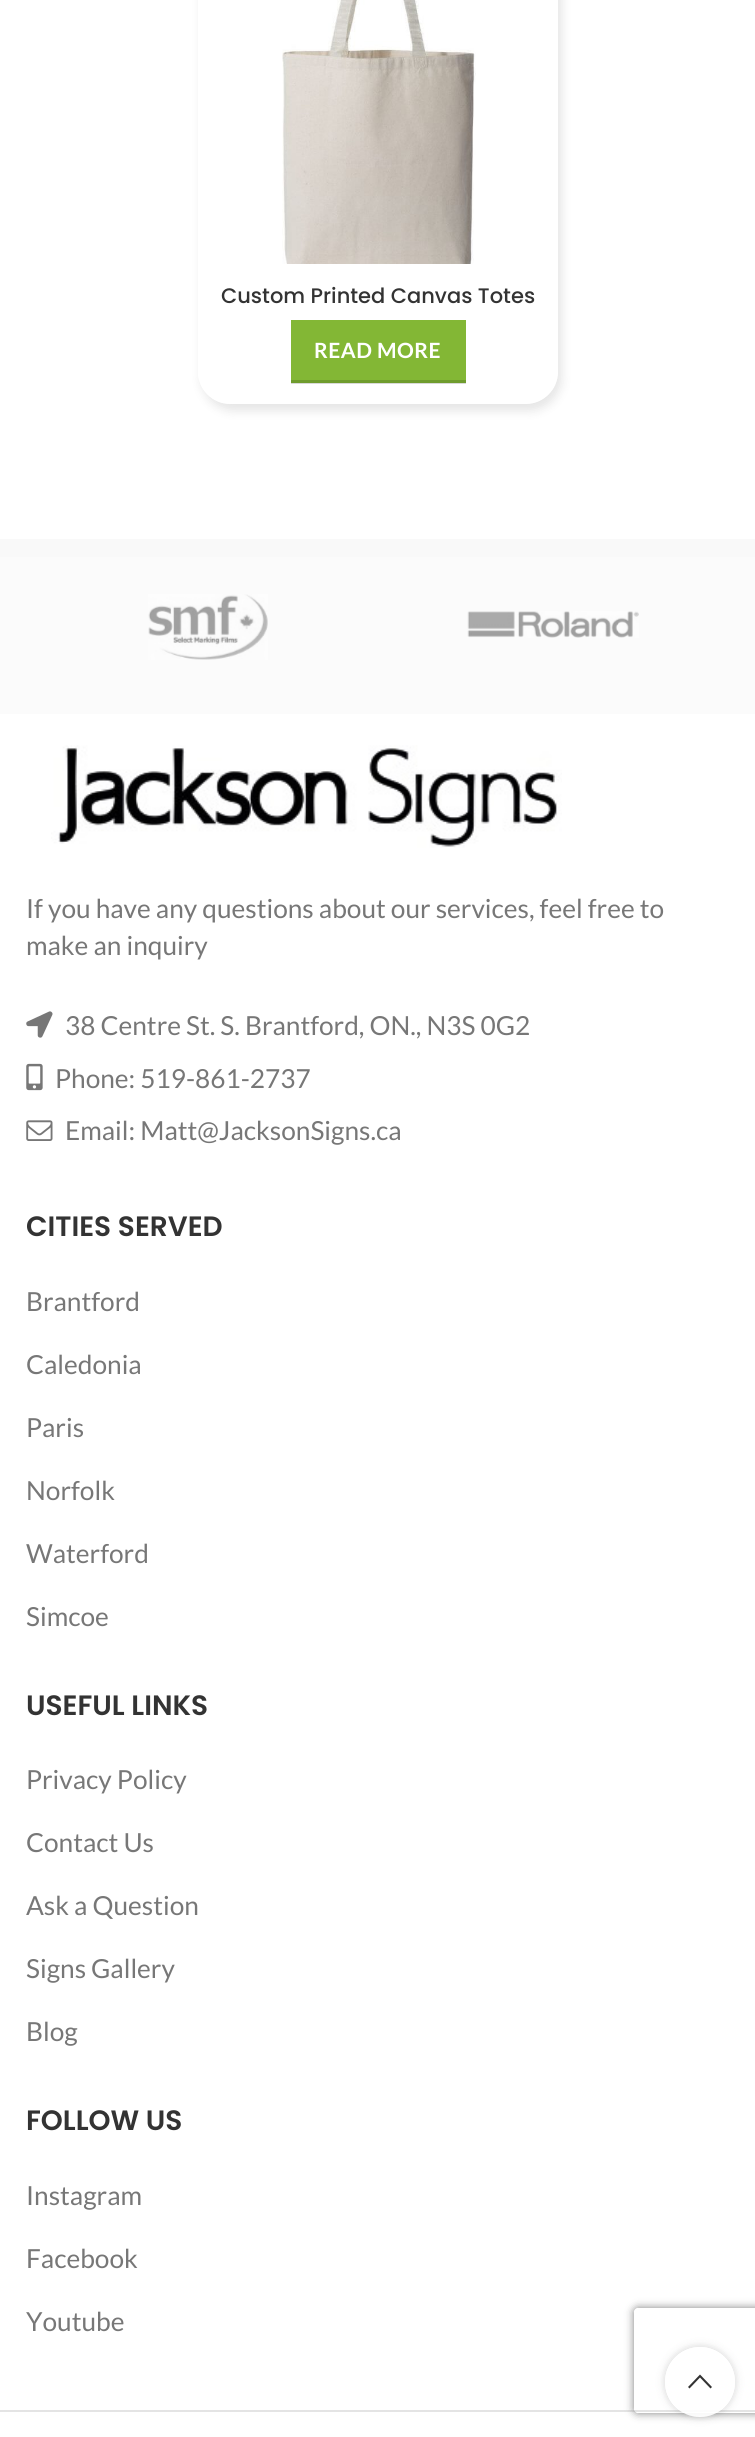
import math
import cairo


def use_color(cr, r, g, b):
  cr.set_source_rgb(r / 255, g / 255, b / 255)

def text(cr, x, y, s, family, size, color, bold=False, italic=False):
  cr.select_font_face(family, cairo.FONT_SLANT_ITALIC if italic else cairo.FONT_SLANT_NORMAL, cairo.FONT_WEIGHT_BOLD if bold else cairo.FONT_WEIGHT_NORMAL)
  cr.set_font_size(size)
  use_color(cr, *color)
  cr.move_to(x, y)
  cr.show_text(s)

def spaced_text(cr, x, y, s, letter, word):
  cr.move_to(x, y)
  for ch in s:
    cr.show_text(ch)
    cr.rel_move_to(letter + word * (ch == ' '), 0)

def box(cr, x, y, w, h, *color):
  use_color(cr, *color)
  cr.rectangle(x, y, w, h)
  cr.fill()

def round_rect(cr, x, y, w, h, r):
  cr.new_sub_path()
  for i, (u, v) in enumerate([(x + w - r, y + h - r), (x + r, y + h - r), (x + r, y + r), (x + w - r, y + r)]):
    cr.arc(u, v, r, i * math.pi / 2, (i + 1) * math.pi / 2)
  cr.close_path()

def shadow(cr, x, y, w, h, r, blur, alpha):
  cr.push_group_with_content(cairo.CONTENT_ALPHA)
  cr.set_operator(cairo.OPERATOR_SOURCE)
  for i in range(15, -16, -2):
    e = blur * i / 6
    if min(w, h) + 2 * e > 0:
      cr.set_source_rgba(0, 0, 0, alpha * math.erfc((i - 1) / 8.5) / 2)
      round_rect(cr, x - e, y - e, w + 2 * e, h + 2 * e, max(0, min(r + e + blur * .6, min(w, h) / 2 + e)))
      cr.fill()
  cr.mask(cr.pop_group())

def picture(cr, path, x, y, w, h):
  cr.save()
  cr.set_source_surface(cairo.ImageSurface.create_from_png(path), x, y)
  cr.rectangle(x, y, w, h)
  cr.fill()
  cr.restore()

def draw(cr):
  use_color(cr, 255, 255, 255)
  cr.paint()
  box(cr, 291, 383, 175, 1, 217, 217, 217)
  cr.save()
  cr.set_fill_rule(cairo.FILL_RULE_EVEN_ODD)
  cr.new_path()
  cr.move_to(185, 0)
  cr.line_to(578, 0)
  cr.line_to(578, 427)
  cr.line_to(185, 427)
  cr.close_path()
  cr.move_to(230, -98)
  cr.line_to(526, -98)
  cr.curve_to(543.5, -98, 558, -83.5, 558, -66)
  cr.line_to(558, 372)
  cr.curve_to(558, 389.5, 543.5, 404, 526, 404)
  cr.line_to(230, 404)
  cr.curve_to(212.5, 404, 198, 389.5, 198, 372)
  cr.line_to(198, -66)
  cr.curve_to(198, -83.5, 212.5, -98, 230, -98)
  cr.close_path()
  cr.clip()
  use_color(cr, 0, 0, 0)
  shadow(cr, 201, -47, 361, 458, 32, 5, 0.1)
  cr.restore()
  picture(cr, "img_01.png", 282, 0, 194, 264)
  box(cr, 291, 320, 175, 60, 131, 183, 53)
  box(cr, 291, 380, 175, 3, 111, 156, 45)
  box(cr, 0, 539, 755, 18, 249, 249, 249)
  box(cr, 0, 557, 755, 157, 251, 251, 251)
  picture(cr, "img_02.png", 148, 594, 120, 66)
  picture(cr, "img_03.png", 467, 611, 172, 27)
  picture(cr, "img_04.png", 51, 745, 511, 103)
  picture(cr, "img_05.png", 26, 1011, 27, 27)
  picture(cr, "img_06.png", 26, 1063, 17, 28)
  picture(cr, "img_07.png", 26, 1120, 27, 21)
  box(cr, 0, 2410, 755, 2, 228, 228, 228)
  cr.save()
  cr.set_fill_rule(cairo.FILL_RULE_EVEN_ODD)
  cr.new_path()
  cr.move_to(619, 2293)
  cr.line_to(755, 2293)
  cr.line_to(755, 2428)
  cr.line_to(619, 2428)
  cr.close_path()
  cr.move_to(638, 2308)
  cr.line_to(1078, 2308)
  cr.curve_to(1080, 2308, 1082, 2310, 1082, 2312)
  cr.line_to(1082, 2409)
  cr.curve_to(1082, 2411, 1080, 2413, 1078, 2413)
  cr.line_to(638, 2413)
  cr.curve_to(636, 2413, 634, 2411, 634, 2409)
  cr.line_to(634, 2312)
  cr.curve_to(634, 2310, 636, 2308, 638, 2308)
  cr.close_path()
  cr.clip()
  use_color(cr, 128, 128, 128)
  shadow(cr, 634, 2308, 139, 105, 4, 4.5, 1)
  cr.restore()
  cr.save()
  cr.set_fill_rule(cairo.FILL_RULE_EVEN_ODD)
  cr.new_path()
  cr.move_to(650, 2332)
  cr.line_to(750, 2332)
  cr.line_to(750, 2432)
  cr.line_to(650, 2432)
  cr.close_path()
  cr.move_to(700, 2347)
  cr.curve_to(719.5, 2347, 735, 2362.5, 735, 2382)
  cr.curve_to(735, 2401.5, 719.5, 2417, 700, 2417)
  cr.curve_to(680.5, 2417, 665, 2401.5, 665, 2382)
  cr.curve_to(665, 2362.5, 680.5, 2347, 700, 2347)
  cr.close_path()
  cr.clip()
  use_color(cr, 0, 0, 0)
  shadow(cr, 665, 2347, 70, 70, 35, 4.5, 0.17)
  cr.restore()
  cr.set_source_rgba(1, 1, 1, 0.9)
  cr.arc(700, 2382, 35, 0, 2 * math.pi)
  cr.fill()
  use_color(cr, 51, 51, 51)
  cr.new_path()
  cr.move_to(700, 2374.5)
  cr.line_to(712, 2387)
  cr.line_to(710.5, 2388.5)
  cr.line_to(700, 2377.5)
  cr.line_to(689.5, 2388.5)
  cr.line_to(688, 2387)
  cr.close_path()
  cr.fill()
  text(cr, 221, 303, "Custom Printed Canvas Totes", "Poppins Medium", 21, (51, 51, 51))
  cr.select_font_face("Lato", cairo.FONT_SLANT_NORMAL, cairo.FONT_WEIGHT_BOLD)
  use_color(cr, 255, 255, 255)
  spaced_text(cr, 314, 358, "READ MORE", 0.5, 0)
  text(cr, 26, 918, "If you have any questions about our services, feel free to", "Lato", 26.25, (119, 119, 119))
  text(cr, 26, 955, "make an inquiry", "Lato", 26.25, (119, 119, 119))
  text(cr, 65, 1035, "38 Centre St. S. Brantford, ON., N3S 0G2", "Lato", 26.25, (119, 119, 119))
  text(cr, 55, 1088, "Phone: 519-861-2737", "Lato", 26.25, (119, 119, 119))
  text(cr, 65, 1140, "Email: Matt@JacksonSigns.ca", "Lato", 26.25, (119, 119, 119))
  text(cr, 26, 1236, "CITIES SERVED", "Poppins SemiBold", 28, (51, 51, 51))
  text(cr, 26, 1311, "Brantford", "Lato", 26.25, (119, 119, 119))
  text(cr, 26, 1374, "Caledonia", "Lato", 26.25, (119, 119, 119))
  text(cr, 26, 1437, "Paris", "Lato", 26.25, (119, 119, 119))
  text(cr, 26, 1500, "Norfolk", "Lato", 26.25, (119, 119, 119))
  text(cr, 26, 1563, "Waterford", "Lato", 26.25, (119, 119, 119))
  text(cr, 26, 1626, "Simcoe", "Lato", 26.25, (119, 119, 119))
  text(cr, 26, 1715, "USEFUL LINKS", "Poppins SemiBold", 28, (51, 51, 51))
  text(cr, 26, 1789, "Privacy Policy", "Lato", 26.25, (119, 119, 119))
  text(cr, 26, 1852, "Contact Us", "Lato", 26.25, (119, 119, 119))
  text(cr, 26, 1915, "Ask a Question", "Lato", 26.25, (119, 119, 119))
  text(cr, 26, 1978, "Signs Gallery", "Lato", 26.25, (119, 119, 119))
  text(cr, 26, 2041, "Blog", "Lato", 26.25, (119, 119, 119))
  text(cr, 26, 2130, "FOLLOW US", "Poppins SemiBold", 28, (51, 51, 51))
  text(cr, 26, 2205, "Instagram", "Lato", 26.25, (119, 119, 119))
  text(cr, 26, 2268, "Facebook", "Lato", 26.25, (119, 119, 119))
  text(cr, 26, 2331, "Youtube", "Lato", 26.25, (119, 119, 119))


surface = cairo.ImageSurface(cairo.FORMAT_RGB24, 755, 2437)
cr = cairo.Context(surface)
options = cairo.FontOptions()
options.set_hint_metrics(cairo.HINT_METRICS_OFF)
options.set_hint_style(cairo.HINT_STYLE_NONE)
cr.set_font_options(options)
cr.set_miter_limit(4)
draw(cr)
surface.write_to_png("out.png")
